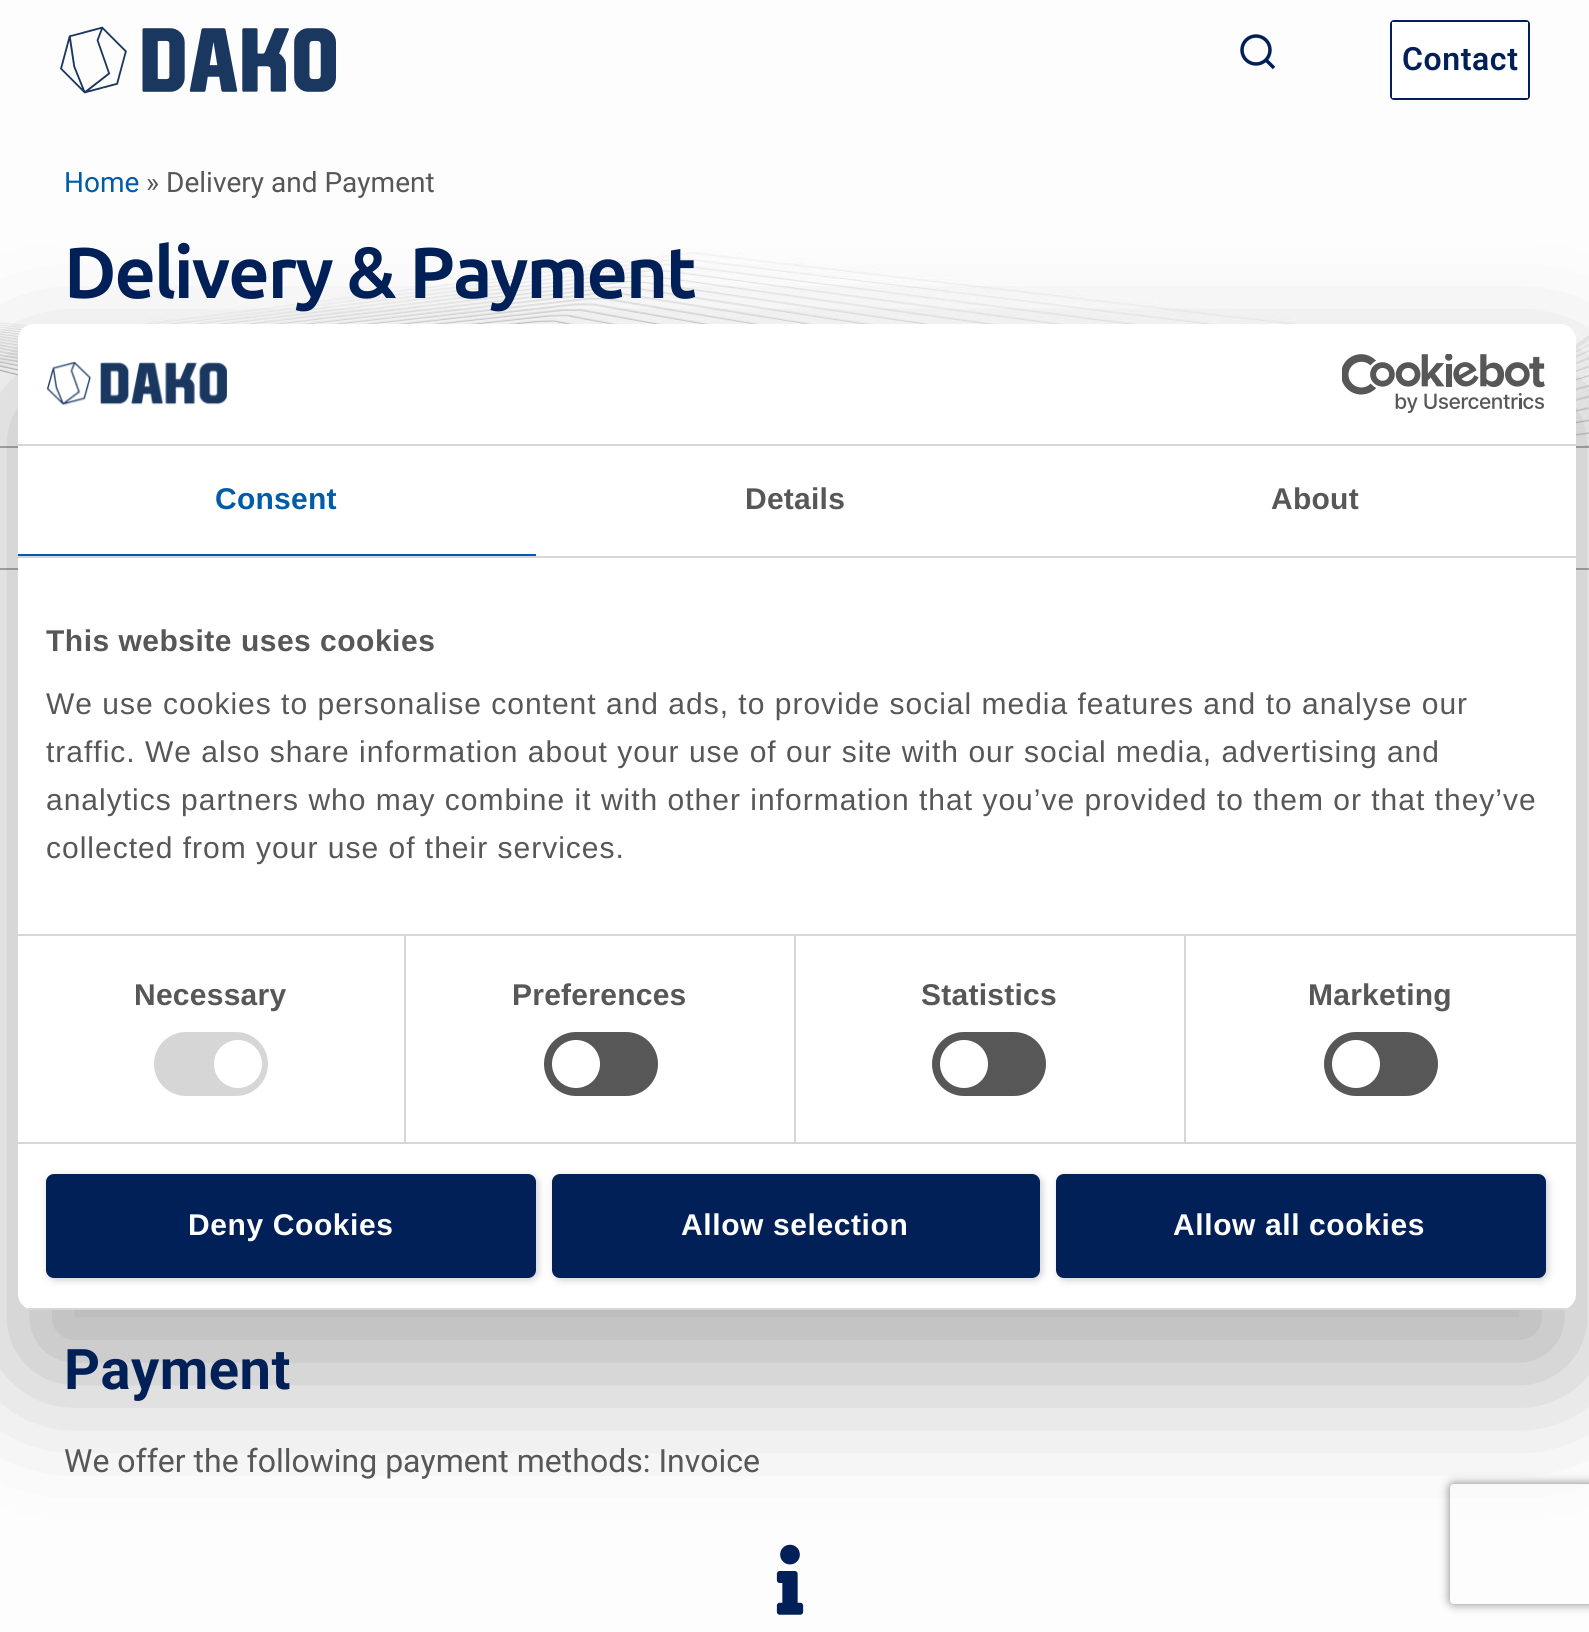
import math
import cairo


def use_color(cr, r, g, b):
  cr.set_source_rgb(r / 255, g / 255, b / 255)

def text(cr, x, y, s, family, size, color, bold=False, italic=False):
  cr.select_font_face(family, cairo.FONT_SLANT_ITALIC if italic else cairo.FONT_SLANT_NORMAL, cairo.FONT_WEIGHT_BOLD if bold else cairo.FONT_WEIGHT_NORMAL)
  cr.set_font_size(size)
  use_color(cr, *color)
  cr.move_to(x, y)
  cr.show_text(s)

def spaced_text(cr, x, y, s, letter, word):
  cr.move_to(x, y)
  for ch in s:
    cr.show_text(ch)
    cr.rel_move_to(letter + word * (ch == ' '), 0)

def box(cr, x, y, w, h, *color):
  use_color(cr, *color)
  cr.rectangle(x, y, w, h)
  cr.fill()

def round_rect(cr, x, y, w, h, r):
  cr.new_sub_path()
  for i, (u, v) in enumerate([(x + w - r, y + h - r), (x + r, y + h - r), (x + r, y + r), (x + w - r, y + r)]):
    cr.arc(u, v, r, i * math.pi / 2, (i + 1) * math.pi / 2)
  cr.close_path()

def shadow(cr, x, y, w, h, r, blur, alpha):
  cr.push_group_with_content(cairo.CONTENT_ALPHA)
  cr.set_operator(cairo.OPERATOR_SOURCE)
  for i in range(15, -16, -2):
    e = blur * i / 6
    if min(w, h) + 2 * e > 0:
      cr.set_source_rgba(0, 0, 0, alpha * math.erfc((i - 1) / 8.5) / 2)
      round_rect(cr, x - e, y - e, w + 2 * e, h + 2 * e, max(0, min(r + e + blur * .6, min(w, h) / 2 + e)))
      cr.fill()
  cr.mask(cr.pop_group())

def picture(cr, path, x, y, w, h):
  cr.save()
  cr.set_source_surface(cairo.ImageSurface.create_from_png(path), x, y)
  cr.rectangle(x, y, w, h)
  cr.fill()
  cr.restore()

def draw(cr):
  use_color(cr, 253, 253, 253)
  cr.paint()
  picture(cr, "img_01.png", 60, 26, 276, 68)
  cr.arc(1256, 50, 14, 0, 2 * math.pi)
  use_color(cr, 0, 32, 87)
  cr.set_line_width(3.5)
  cr.stroke()
  cr.new_path()
  cr.move_to(1274, 68)
  cr.line_to(1266.5, 60.5)
  cr.set_line_join(cairo.LINE_JOIN_ROUND)
  cr.stroke()
  round_rect(cr, 1391, 21, 138, 78, 3)
  cr.set_line_width(2)
  cr.set_line_join(cairo.LINE_JOIN_MITER)
  cr.stroke()
  box(cr, 1392, 22, 136, 76, 255, 255, 255)
  picture(cr, "img_02.png", 0, 252, 1589, 194)
  box(cr, 0, 446, 1589, 2, 177, 177, 177)
  box(cr, 0, 568, 1589, 2, 177, 177, 177)
  picture(cr, "img_03.png", 776, 1544, 28, 71)
  use_color(cr, 0, 0, 0)
  shadow(cr, 18, 388, 1558, 986, 16, 68, 0.3)
  use_color(cr, 255, 255, 255)
  round_rect(cr, 18, 324, 1558, 986, 16)
  cr.fill()
  box(cr, 18, 444, 1558, 2, 214, 214, 214)
  picture(cr, "img_04.png", 47, 361, 180, 45)
  picture(cr, "img_05.png", 1342, 354, 203, 60)
  box(cr, 18, 556, 1558, 2, 214, 214, 214)
  box(cr, 18, 554, 518, 2, 0, 92, 169)
  box(cr, 18, 934, 1558, 2, 214, 214, 214)
  box(cr, 18, 1142, 1558, 2, 214, 214, 214)
  box(cr, 404, 936, 2, 206, 214, 214, 214)
  round_rect(cr, 154, 1032, 114, 64, 32)
  cr.fill()
  use_color(cr, 255, 255, 255)
  cr.arc(238, 1064, 24, 0, 2 * math.pi)
  cr.fill()
  box(cr, 794, 936, 2, 206, 214, 214, 214)
  use_color(cr, 87, 87, 87)
  round_rect(cr, 544, 1032, 114, 64, 32)
  cr.fill()
  use_color(cr, 255, 255, 255)
  cr.arc(576, 1064, 24, 0, 2 * math.pi)
  cr.fill()
  box(cr, 1184, 936, 2, 206, 214, 214, 214)
  use_color(cr, 87, 87, 87)
  round_rect(cr, 932, 1032, 114, 64, 32)
  cr.fill()
  use_color(cr, 255, 255, 255)
  cr.arc(964, 1064, 24, 0, 2 * math.pi)
  cr.fill()
  use_color(cr, 87, 87, 87)
  round_rect(cr, 1324, 1032, 114, 64, 32)
  cr.fill()
  use_color(cr, 255, 255, 255)
  cr.arc(1356, 1064, 24, 0, 2 * math.pi)
  cr.fill()
  cr.save()
  round_rect(cr, 18, 324, 1558, 986, 16)
  cr.clip()
  box(cr, 18, 1308, 1558, 2, 214, 214, 214)
  cr.restore()
  use_color(cr, 0, 0, 0)
  shadow(cr, 48, 1176, 490, 104, 8, 4, 0.2)
  use_color(cr, 0, 32, 87)
  round_rect(cr, 48, 1176, 486, 100, 6)
  cr.fill_preserve()
  cr.set_line_width(4)
  cr.stroke()
  use_color(cr, 0, 0, 0)
  shadow(cr, 554, 1176, 488, 104, 8, 4, 0.2)
  use_color(cr, 0, 32, 87)
  round_rect(cr, 554, 1176, 484, 100, 6)
  cr.fill_preserve()
  cr.stroke()
  use_color(cr, 0, 0, 0)
  shadow(cr, 1058, 1176, 490, 104, 8, 4, 0.2)
  use_color(cr, 0, 32, 87)
  round_rect(cr, 1058, 1176, 486, 100, 6)
  cr.fill_preserve()
  cr.stroke()
  cr.save()
  cr.set_fill_rule(cairo.FILL_RULE_EVEN_ODD)
  cr.new_path()
  cr.move_to(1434, 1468)
  cr.line_to(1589, 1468)
  cr.line_to(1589, 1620)
  cr.line_to(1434, 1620)
  cr.close_path()
  cr.move_to(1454, 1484)
  cr.line_to(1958, 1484)
  cr.curve_to(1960, 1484, 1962, 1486, 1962, 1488)
  cr.line_to(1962, 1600)
  cr.curve_to(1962, 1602, 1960, 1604, 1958, 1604)
  cr.line_to(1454, 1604)
  cr.curve_to(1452, 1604, 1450, 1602, 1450, 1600)
  cr.line_to(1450, 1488)
  cr.curve_to(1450, 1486, 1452, 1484, 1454, 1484)
  cr.close_path()
  cr.clip()
  use_color(cr, 128, 128, 128)
  shadow(cr, 1450, 1484, 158, 120, 4, 5, 1)
  cr.restore()
  cr.select_font_face("Roboto SemiBold")
  cr.set_font_size(32)
  spaced_text(cr, 1402, 70, "Contact", 0.6, 0)
  text(cr, 64, 192, "Home", "Roboto", 28, (0, 92, 169))
  text(cr, 146, 192, "» Delivery and Payment", "Roboto", 28, (87, 87, 87))
  cr.select_font_face("Ubuntu", cairo.FONT_SLANT_NORMAL, cairo.FONT_WEIGHT_BOLD)
  cr.set_font_size(72)
  use_color(cr, 0, 32, 87)
  spaced_text(cr, 64, 298, "Delivery & Payment", -2, 0)
  cr.select_font_face("Roboto", cairo.FONT_SLANT_NORMAL, cairo.FONT_WEIGHT_BOLD)
  cr.set_font_size(56)
  spaced_text(cr, 64, 1389, "Payment", 0.5, 0)
  text(cr, 64, 1472, "We offer the following payment methods: Invoice", "Roboto", 32, (87, 87, 87))
  cr.select_font_face("Liberation Sans", cairo.FONT_SLANT_NORMAL, cairo.FONT_WEIGHT_BOLD)
  cr.set_font_size(30)
  use_color(cr, 0, 92, 169)
  spaced_text(cr, 215, 509, "Consent", 0.25, 0)
  use_color(cr, 87, 87, 87)
  spaced_text(cr, 745, 509, "Details", 0.25, 0)
  spaced_text(cr, 1271, 509, "About", 0.25, 0)
  spaced_text(cr, 46, 651, "This website uses cookies", 0.5, 0)
  cr.select_font_face("Liberation Sans")
  spaced_text(cr, 46, 714, "We use cookies to personalise content and ads, to provide social media features and to analyse our", 1, 0)
  spaced_text(cr, 46, 762, "traffic. We also share information about your use of our site with our social media, advertising and", 1, 0)
  spaced_text(cr, 46, 810, "analytics partners who may combine it with other information that you’ve provided to them or that they’ve", 1, 0)
  spaced_text(cr, 46, 858, "collected from your use of their services.", 1, 0)
  cr.select_font_face("Liberation Sans", cairo.FONT_SLANT_NORMAL, cairo.FONT_WEIGHT_BOLD)
  spaced_text(cr, 134, 1005, "Necessary", 0.25, 0)
  spaced_text(cr, 512, 1005, "Preferences", 0.25, 0)
  spaced_text(cr, 921, 1005, "Statistics", 0.25, 0)
  spaced_text(cr, 1308, 1005, "Marketing", 0.25, 0)
  use_color(cr, 253, 253, 253)
  spaced_text(cr, 188, 1235, "Deny Cookies", 0.6, 0)
  spaced_text(cr, 681, 1235, "Allow selection", 0.6, 0)
  spaced_text(cr, 1173, 1235, "Allow all cookies", 0.6, 0)


surface = cairo.ImageSurface(cairo.FORMAT_RGB24, 1589, 1632)
cr = cairo.Context(surface)
options = cairo.FontOptions()
options.set_hint_metrics(cairo.HINT_METRICS_OFF)
options.set_hint_style(cairo.HINT_STYLE_NONE)
cr.set_font_options(options)
cr.set_miter_limit(4)
draw(cr)
surface.write_to_png("out.png")
